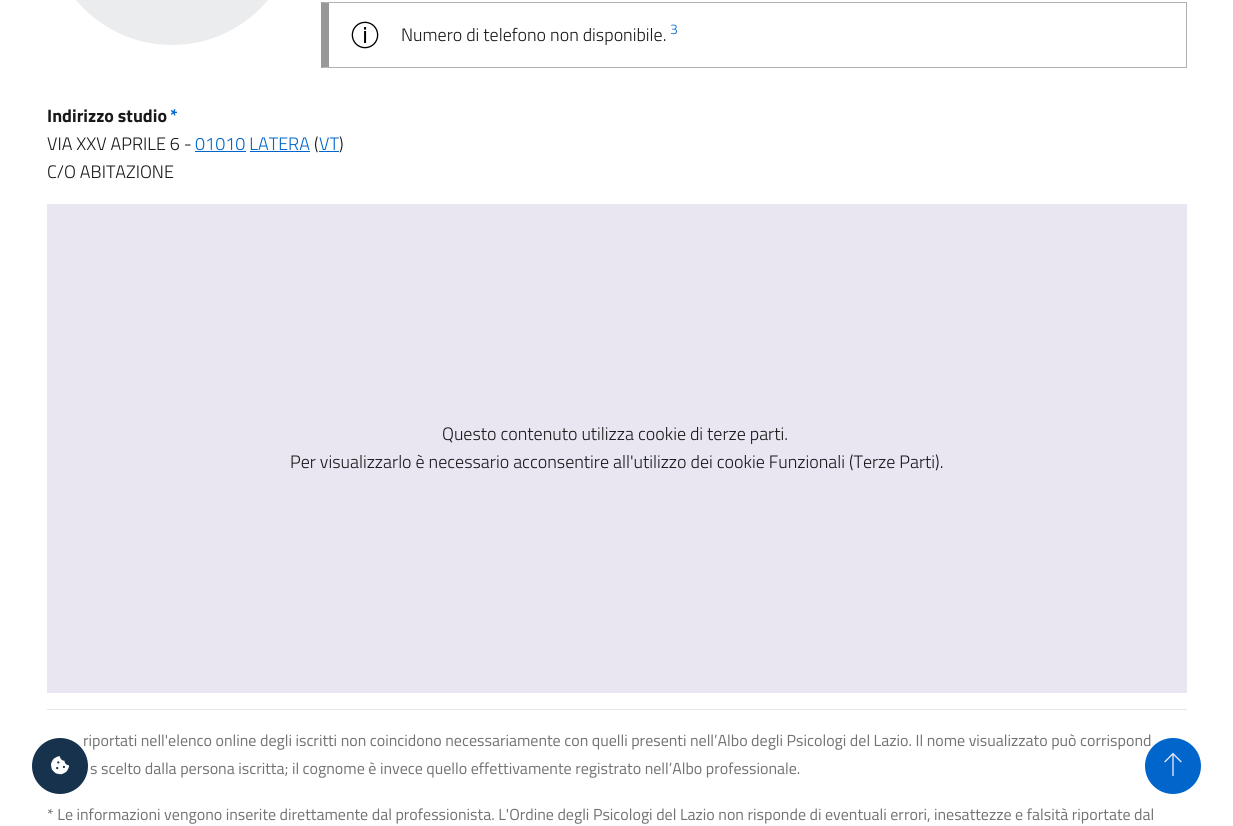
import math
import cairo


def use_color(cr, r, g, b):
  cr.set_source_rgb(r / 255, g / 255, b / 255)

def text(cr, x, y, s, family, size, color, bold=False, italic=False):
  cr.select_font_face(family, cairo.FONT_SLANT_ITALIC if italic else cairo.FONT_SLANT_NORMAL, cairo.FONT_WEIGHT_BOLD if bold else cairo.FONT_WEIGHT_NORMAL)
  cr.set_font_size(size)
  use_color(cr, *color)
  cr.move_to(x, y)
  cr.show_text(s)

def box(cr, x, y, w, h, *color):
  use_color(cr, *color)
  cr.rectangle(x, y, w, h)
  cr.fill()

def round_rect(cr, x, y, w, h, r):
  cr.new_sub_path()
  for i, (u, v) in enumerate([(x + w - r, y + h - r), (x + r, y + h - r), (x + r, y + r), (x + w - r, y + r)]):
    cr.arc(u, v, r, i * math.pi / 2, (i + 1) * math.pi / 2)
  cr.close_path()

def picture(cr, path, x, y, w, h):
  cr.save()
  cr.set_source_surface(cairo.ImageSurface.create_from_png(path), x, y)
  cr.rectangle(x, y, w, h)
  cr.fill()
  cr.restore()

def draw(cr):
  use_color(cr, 255, 255, 255)
  cr.paint()
  use_color(cr, 235, 236, 237)
  round_rect(cr, 47, -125, 250, 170, 125)
  cr.fill()
  picture(cr, "img_01.png", 351, 21, 28, 28)
  use_color(cr, 177, 177, 179)
  cr.new_path()
  cr.move_to(321, 2)
  cr.line_to(1187, 2)
  cr.line_to(1186, 3)
  cr.line_to(329, 3)
  cr.close_path()
  cr.fill()
  box(cr, 1186, 2, 1, 66, 177, 177, 179)
  cr.new_path()
  cr.move_to(1187, 68)
  cr.line_to(321, 68)
  cr.line_to(329, 67)
  cr.line_to(1186, 67)
  cr.close_path()
  cr.fill()
  use_color(cr, 151, 152, 153)
  cr.new_path()
  cr.move_to(321, 68)
  cr.line_to(321, 2)
  cr.line_to(329, 3)
  cr.line_to(329, 67)
  cr.close_path()
  cr.fill()
  box(cr, 195, 151, 51, 1, 0, 102, 204)
  box(cr, 319, 151, 20, 1, 0, 102, 204)
  box(cr, 250, 151, 60, 1, 0, 102, 204)
  box(cr, 47, 204, 1140, 489, 233, 230, 242)
  box(cr, 47, 709, 1140, 1, 230, 230, 230)
  text(cr, 401, 41, "Numero di telefono non disponibile.", "Titillium Web Light", 18, (25, 25, 26))
  text(cr, 670, 34, "3", "Titillium Web Light", 14, (0, 102, 204))
  text(cr, 47, 122, "Indirizzo studio", "Titillium Web", 18, (25, 25, 26), bold=True)
  text(cr, 170, 122, "*", "Titillium Web", 18, (0, 102, 204), bold=True)
  text(cr, 47, 150, "VIA XXV APRILE 6 -", "Titillium Web Light", 18, (25, 25, 26))
  text(cr, 195, 150, "01010 LATERA", "Titillium Web Light", 18, (0, 102, 204))
  text(cr, 314, 150, "(", "Titillium Web Light", 18, (25, 25, 26))
  text(cr, 319, 150, "VT", "Titillium Web Light", 18, (0, 102, 204))
  text(cr, 339, 150, ")", "Titillium Web Light", 18, (25, 25, 26))
  text(cr, 47, 178, "C/O ABITAZIONE", "Titillium Web Light", 18, (25, 25, 26))
  text(cr, 442, 440, "Questo contenuto utilizza cookie di terze parti.", "Titillium Web Light", 18, (25, 25, 26))
  text(cr, 290, 468, "Per visualizzarlo è necessario acconsentire all'utilizzo dei cookie Funzionali (Terze Parti).", "Titillium Web Light", 18, (25, 25, 26))
  text(cr, 83, 746, "riportati nell'elenco online degli iscritti non coincidono necessariamente con quelli presenti nell’Albo degli Psicologi del Lazio. Il nome visualizzato può corrispond", "Titillium Web", 16, (113, 114, 115))
  text(cr, 90, 774, "s scelto dalla persona iscritta; il cognome è invece quello effettivamente registrato nell’Albo professionale.", "Titillium Web", 16, (113, 114, 115))
  text(cr, 47, 820, "* Le informazioni vengono inserite direttamente dal professionista. L'Ordine degli Psicologi del Lazio non risponde di eventuali errori, inesattezze e falsità riportate dal", "Titillium Web", 16, (113, 114, 115))
  use_color(cr, 23, 50, 77)
  cr.new_path()
  cr.arc(60, 766, 28, 0, 2 * math.pi)
  cr.fill()
  picture(cr, "img_02.png", 51, 756, 18, 19)
  use_color(cr, 0, 102, 204)
  cr.arc(1173, 766, 28, 0, 2 * math.pi)
  cr.fill()
  picture(cr, "img_03.png", 1164, 752, 18, 24)


surface = cairo.ImageSurface(cairo.FORMAT_RGB24, 1233, 826)
cr = cairo.Context(surface)
options = cairo.FontOptions()
options.set_hint_metrics(cairo.HINT_METRICS_OFF)
options.set_hint_style(cairo.HINT_STYLE_NONE)
cr.set_font_options(options)
cr.set_miter_limit(4)
draw(cr)
surface.write_to_png("out.png")
